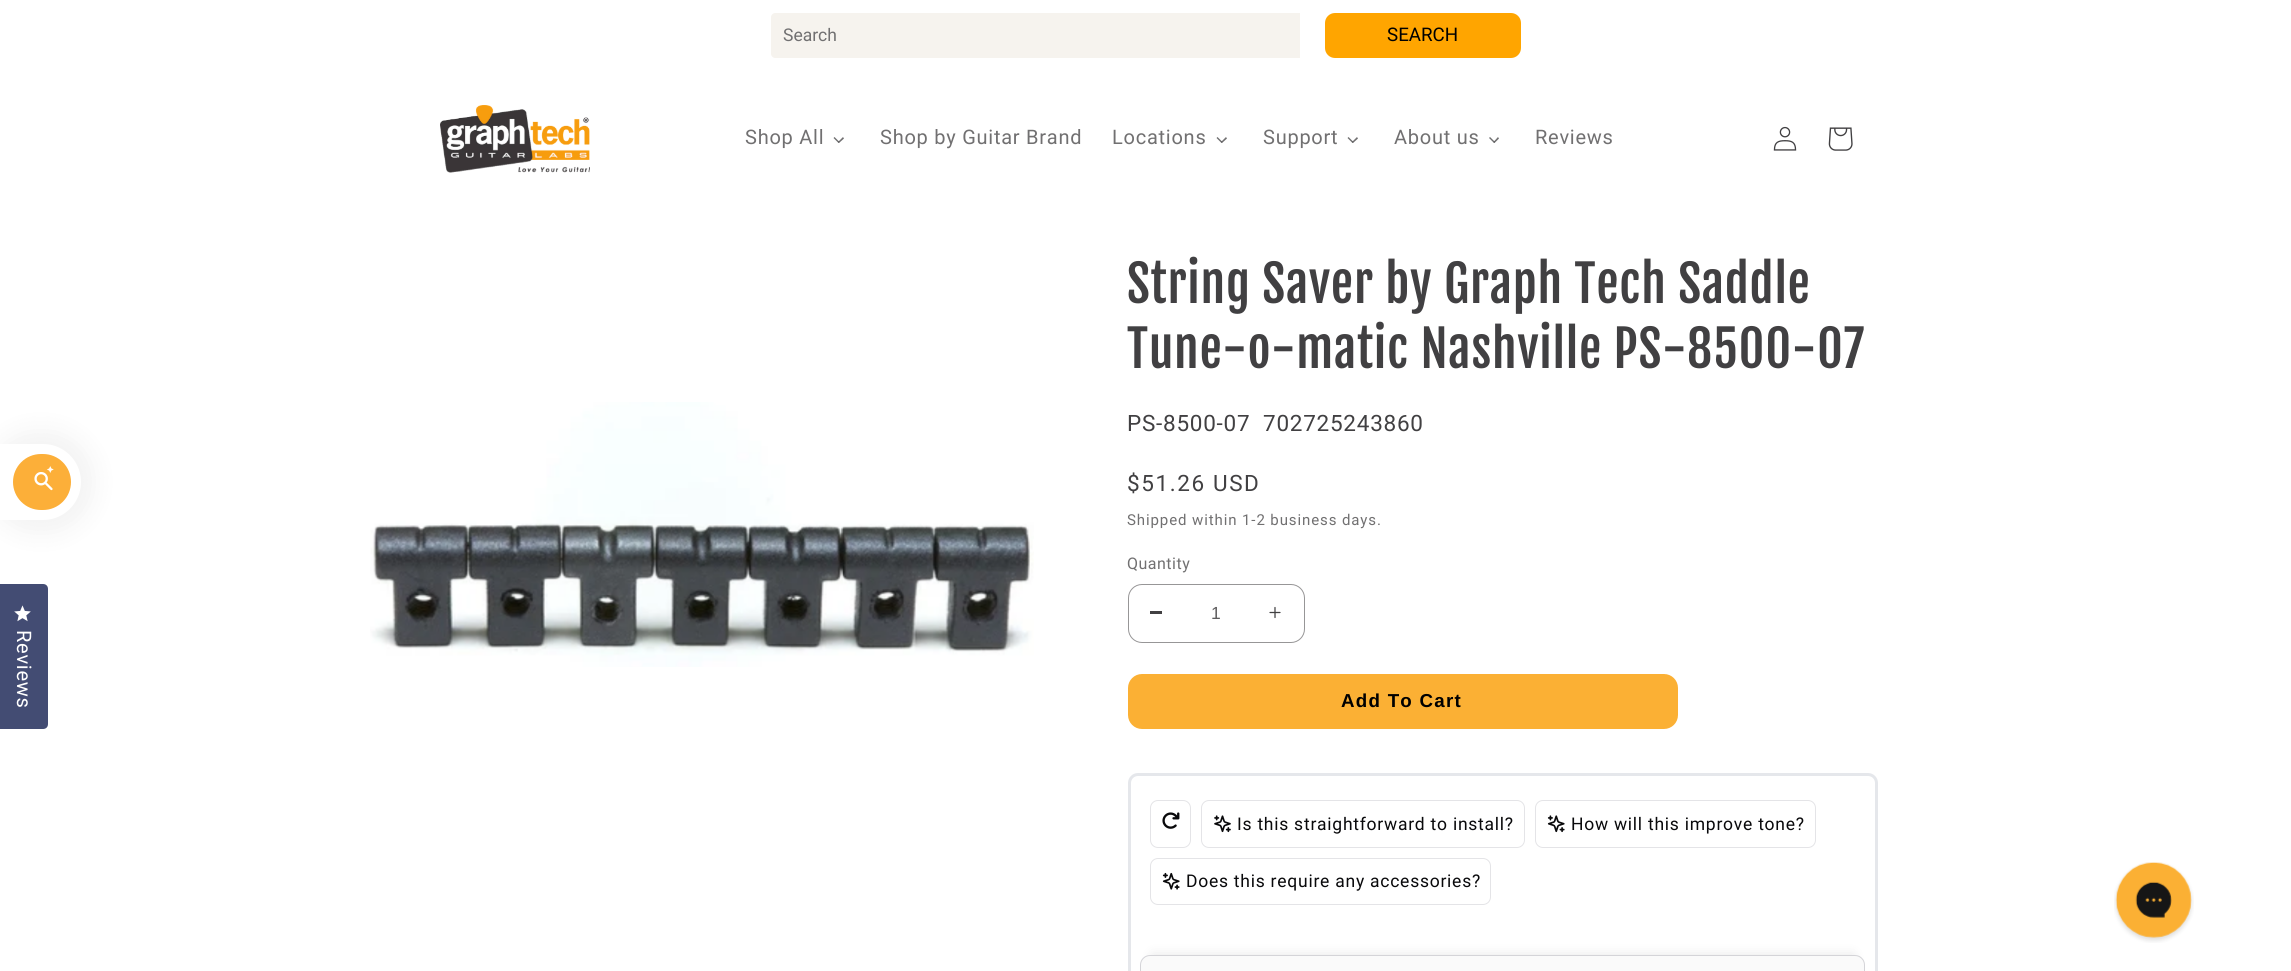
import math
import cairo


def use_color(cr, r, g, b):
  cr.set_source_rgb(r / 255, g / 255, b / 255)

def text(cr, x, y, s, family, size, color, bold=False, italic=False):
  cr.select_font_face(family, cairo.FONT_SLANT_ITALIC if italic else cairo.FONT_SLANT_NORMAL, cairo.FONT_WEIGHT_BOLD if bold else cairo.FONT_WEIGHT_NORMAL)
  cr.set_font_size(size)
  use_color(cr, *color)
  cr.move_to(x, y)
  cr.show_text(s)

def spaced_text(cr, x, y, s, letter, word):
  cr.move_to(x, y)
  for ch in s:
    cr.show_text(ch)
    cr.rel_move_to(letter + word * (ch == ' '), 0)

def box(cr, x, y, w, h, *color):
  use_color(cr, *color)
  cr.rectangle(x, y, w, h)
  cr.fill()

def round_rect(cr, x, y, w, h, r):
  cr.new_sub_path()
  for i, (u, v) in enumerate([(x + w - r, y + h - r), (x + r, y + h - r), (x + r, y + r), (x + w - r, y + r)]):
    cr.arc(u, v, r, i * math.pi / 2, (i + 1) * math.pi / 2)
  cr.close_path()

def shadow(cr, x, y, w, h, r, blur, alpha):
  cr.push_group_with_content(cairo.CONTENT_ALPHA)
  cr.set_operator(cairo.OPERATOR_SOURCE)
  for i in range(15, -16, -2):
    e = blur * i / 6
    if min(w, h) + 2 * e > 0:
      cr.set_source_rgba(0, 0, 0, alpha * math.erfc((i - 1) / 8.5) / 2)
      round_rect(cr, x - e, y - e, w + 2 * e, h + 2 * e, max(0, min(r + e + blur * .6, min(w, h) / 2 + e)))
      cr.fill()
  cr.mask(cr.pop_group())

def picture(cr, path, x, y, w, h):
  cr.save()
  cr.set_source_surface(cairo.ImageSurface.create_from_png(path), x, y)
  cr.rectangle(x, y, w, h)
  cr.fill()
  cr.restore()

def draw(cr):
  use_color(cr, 255, 255, 255)
  cr.paint()
  use_color(cr, 246, 243, 238)
  cr.new_path()
  cr.move_to(775, 13)
  cr.line_to(1300, 13)
  cr.line_to(1300, 58)
  cr.line_to(775, 58)
  cr.curve_to(773, 58, 771, 56, 771, 54)
  cr.line_to(771, 17)
  cr.curve_to(771, 15, 773, 13, 775, 13)
  cr.close_path()
  cr.fill()
  use_color(cr, 255, 165, 0)
  round_rect(cr, 1325, 13, 196, 45, 10)
  cr.fill()
  picture(cr, "img_01.png", 440, 105, 150, 68)
  use_color(cr, 113, 112, 113)
  cr.new_path()
  cr.move_to(843, 137)
  cr.line_to(844, 138.5)
  cr.line_to(839, 143)
  cr.line_to(838, 142)
  cr.close_path()
  cr.fill()
  cr.set_source_rgba(0.255, 0.251, 0.259, 0.75)
  cr.new_path()
  cr.move_to(834.5, 137)
  cr.line_to(839.5, 142)
  cr.line_to(838.5, 143)
  cr.line_to(833.5, 138)
  cr.close_path()
  cr.fill()
  use_color(cr, 113, 112, 113)
  cr.new_path()
  cr.move_to(1226, 137)
  cr.line_to(1227, 138.5)
  cr.line_to(1222, 143)
  cr.line_to(1221, 142)
  cr.close_path()
  cr.fill()
  cr.set_source_rgba(0.255, 0.251, 0.259, 0.75)
  cr.new_path()
  cr.move_to(1217.5, 137)
  cr.line_to(1222.5, 142)
  cr.line_to(1221.5, 143)
  cr.line_to(1216.5, 138)
  cr.close_path()
  cr.fill()
  use_color(cr, 113, 112, 113)
  cr.new_path()
  cr.move_to(1357, 137)
  cr.line_to(1358, 138.5)
  cr.line_to(1353, 143)
  cr.line_to(1352, 142)
  cr.close_path()
  cr.fill()
  cr.set_source_rgba(0.255, 0.251, 0.259, 0.75)
  cr.new_path()
  cr.move_to(1348.5, 137)
  cr.line_to(1353.5, 142)
  cr.line_to(1352.5, 143)
  cr.line_to(1347.5, 138)
  cr.close_path()
  cr.fill()
  use_color(cr, 113, 112, 113)
  cr.new_path()
  cr.move_to(1498, 137)
  cr.line_to(1499, 138.5)
  cr.line_to(1494.5, 143)
  cr.line_to(1493.5, 142)
  cr.close_path()
  cr.fill()
  cr.set_source_rgba(0.255, 0.251, 0.259, 0.75)
  cr.new_path()
  cr.move_to(1490, 137)
  cr.line_to(1495, 142)
  cr.line_to(1494, 143)
  cr.line_to(1489, 138)
  cr.close_path()
  cr.fill()
  picture(cr, "img_02.png", 1773, 126, 24, 25)
  picture(cr, "img_03.png", 1828, 127, 25, 24)
  use_color(cr, 0, 0, 0)
  shadow(cr, -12, 431, 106, 102, 51, 12.5, 0.05)
  use_color(cr, 255, 255, 255)
  cr.new_path()
  cr.move_to(0, 444)
  cr.line_to(43, 444)
  cr.curve_to(64, 444, 81, 461, 81, 482)
  cr.curve_to(81, 503, 64, 520, 43, 520)
  cr.line_to(0, 520)
  cr.close_path()
  cr.fill()
  use_color(cr, 252, 175, 57)
  round_rect(cr, 13, 454, 58, 56, 28)
  cr.fill()
  picture(cr, "img_04.png", 34, 466, 20, 25)
  picture(cr, "img_05.png", 370, 402, 664, 265)
  box(cr, 1150, 611, 12, 3, 65, 64, 66)
  picture(cr, "img_06.png", 1269, 606, 12, 13)
  round_rect(cr, 1128.5, 584.5, 176, 58, 13.5)
  use_color(cr, 151, 150, 151)
  cr.set_line_width(1)
  cr.stroke()
  use_color(cr, 251, 176, 52)
  round_rect(cr, 1128, 674, 550, 55, 14)
  cr.fill()
  round_rect(cr, 1129.5, 774.5, 747, 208, 8.5)
  use_color(cr, 229, 231, 235)
  cr.set_line_width(3)
  cr.stroke()
  round_rect(cr, 1150.5, 800.5, 40, 47, 7.5)
  use_color(cr, 228, 228, 231)
  cr.set_line_width(1)
  cr.stroke()
  picture(cr, "img_07.png", 1162, 812, 18, 17)
  round_rect(cr, 1201.5, 800.5, 323, 47, 7.5)
  cr.stroke()
  picture(cr, "img_08.png", 1214, 815, 17, 18)
  round_rect(cr, 1535.5, 800.5, 280, 47, 7.5)
  cr.stroke()
  picture(cr, "img_09.png", 1547, 815, 18, 18)
  round_rect(cr, 1150.5, 858.5, 340, 46, 7.5)
  cr.stroke()
  picture(cr, "img_10.png", 1162, 872, 18, 18)
  use_color(cr, 0, 0, 0)
  shadow(cr, 1153, 955, 700, 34, 0, 6, 0.1)
  use_color(cr, 250, 250, 250)
  round_rect(cr, 1140.5, 955.5, 724, 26, 9.5)
  cr.fill_preserve()
  use_color(cr, 212, 212, 216)
  cr.stroke()
  use_color(cr, 67, 76, 115)
  cr.new_path()
  cr.move_to(-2, 584)
  cr.line_to(43, 584)
  cr.curve_to(46, 584, 48, 586, 48, 589)
  cr.line_to(48, 724)
  cr.curve_to(48, 727, 46, 729, 43, 729)
  cr.line_to(-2, 729)
  cr.close_path()
  cr.fill()
  picture(cr, "img_11.png", 14, 605, 17, 17)
  picture(cr, "img_12.png", 2114, 862, 80, 81)
  text(cr, 783, 41, "Search", "Roboto", 17.5, (113, 112, 113))
  text(cr, 1387, 41, "SEARCH", "Roboto", 18.75, (0, 0, 0))
  cr.set_font_size(20)
  use_color(cr, 113, 112, 113)
  spaced_text(cr, 745, 144, "Shop All", 0.75, 0)
  spaced_text(cr, 880, 144, "Shop by Guitar Brand", 0.75, 0)
  spaced_text(cr, 1112, 144, "Locations", 0.75, 0)
  spaced_text(cr, 1263, 144, "Support", 0.75, 0)
  spaced_text(cr, 1394, 144, "About us", 0.75, 0)
  spaced_text(cr, 1535, 144, "Reviews", 0.75, 0)
  cr.select_font_face("Fjalla One")
  cr.set_font_size(50)
  use_color(cr, 65, 64, 66)
  spaced_text(cr, 1127, 303, "String Saver by Graph Tech Saddle", 0.75, 0)
  spaced_text(cr, 1127, 368, "Tune-o-matic Nashville PS-8500-07", 0.75, 0)
  cr.select_font_face("Roboto")
  cr.set_font_size(22.5)
  spaced_text(cr, 1127, 431, "PS-8500-07", 0.75, 0)
  spaced_text(cr, 1263, 431, "702725243860", 0.75, 0)
  spaced_text(cr, 1127, 491, "$51.26 USD", 1.6, 0)
  cr.set_font_size(15)
  use_color(cr, 113, 112, 113)
  spaced_text(cr, 1127, 525, "Shipped within 1-2 business days.", 0.9, 0)
  cr.set_font_size(16)
  spaced_text(cr, 1127, 569, "Quantity", 0.5, 0)
  text(cr, 1211, 619, "1", "Liberation Sans", 17.5, (94, 93, 94))
  cr.select_font_face("Liberation Sans", cairo.FONT_SLANT_NORMAL, cairo.FONT_WEIGHT_BOLD)
  cr.set_font_size(18.75)
  use_color(cr, 0, 0, 0)
  spaced_text(cr, 1341, 707, "Add To Cart", 1.25, 0)
  cr.select_font_face("Roboto")
  cr.set_font_size(17.5)
  use_color(cr, 9, 9, 11)
  spaced_text(cr, 1237, 830, "Is this straightforward to install?", 0.75, 0)
  spaced_text(cr, 1571, 830, "How will this improve tone?", 0.75, 0)
  spaced_text(cr, 1186, 887, "Does this require any accessories?", 0.75, 0)
  cr.set_font_size(20)
  use_color(cr, 255, 255, 255)
  cr.save()
  cr.translate(17, 630)
  cr.rotate(90.1 * math.pi / 180)
  spaced_text(cr, 0, 0, "Reviews", 0.75, 0)
  cr.restore()


surface = cairo.ImageSurface(cairo.FORMAT_RGB24, 2291, 971)
cr = cairo.Context(surface)
options = cairo.FontOptions()
options.set_hint_metrics(cairo.HINT_METRICS_OFF)
options.set_hint_style(cairo.HINT_STYLE_NONE)
cr.set_font_options(options)
cr.set_miter_limit(4)
draw(cr)
surface.write_to_png("out.png")
